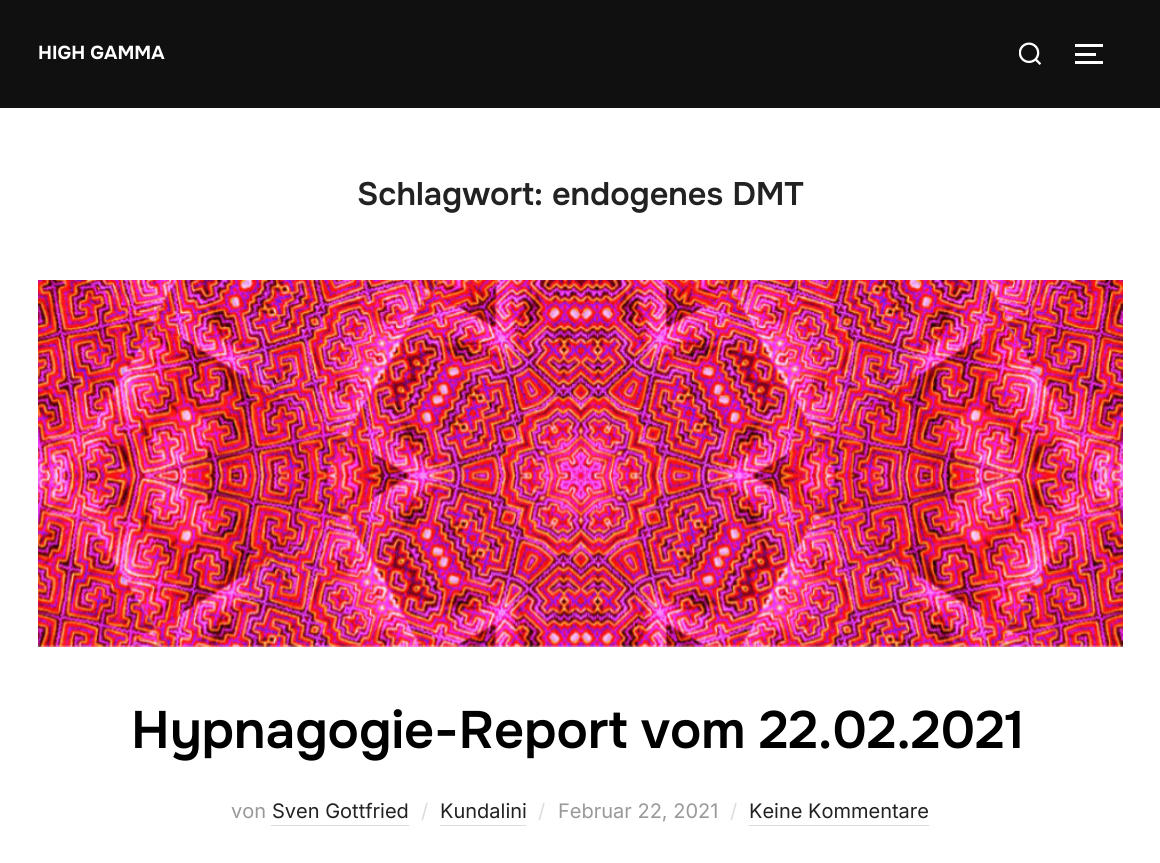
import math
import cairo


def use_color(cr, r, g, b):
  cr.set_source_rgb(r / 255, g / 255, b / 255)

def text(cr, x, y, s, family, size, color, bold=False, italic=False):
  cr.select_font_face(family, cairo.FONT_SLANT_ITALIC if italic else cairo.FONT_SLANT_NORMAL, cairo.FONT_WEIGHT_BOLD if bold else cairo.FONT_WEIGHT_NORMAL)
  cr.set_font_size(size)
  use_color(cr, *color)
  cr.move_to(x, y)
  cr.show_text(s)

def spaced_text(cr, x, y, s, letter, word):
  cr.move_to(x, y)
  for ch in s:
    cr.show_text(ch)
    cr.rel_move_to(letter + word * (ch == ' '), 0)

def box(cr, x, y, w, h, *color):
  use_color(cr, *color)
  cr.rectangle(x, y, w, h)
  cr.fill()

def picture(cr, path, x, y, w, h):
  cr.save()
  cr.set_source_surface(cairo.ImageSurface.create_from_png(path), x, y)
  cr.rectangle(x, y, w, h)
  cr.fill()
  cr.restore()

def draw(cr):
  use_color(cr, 255, 255, 255)
  cr.paint()
  box(cr, 0, 0, 1160, 108, 16, 16, 16)
  picture(cr, "img_01.png", 1019, 42, 22, 23)
  box(cr, 1075, 44, 28, 3, 255, 255, 255)
  box(cr, 1075, 53, 21, 3, 255, 255, 255)
  box(cr, 1075, 61, 28, 3, 255, 255, 255)
  picture(cr, "img_02.png", 38, 280, 1085, 367)
  box(cr, 271, 825, 138, 1, 219, 219, 219)
  box(cr, 440, 825, 86, 1, 219, 219, 219)
  box(cr, 749, 825, 180, 1, 219, 219, 219)
  text(cr, 38, 59, "HIGH GAMMA", "Onest", 18.75, (255, 255, 255), bold=True)
  text(cr, 357, 205, "Schlagwort: endogenes DMT", "Onest SemiBold", 32.5, (34, 34, 34))
  cr.set_font_size(52.5)
  use_color(cr, 0, 0, 0)
  spaced_text(cr, 131, 748, "Hypnagogie-Report vom 22.02.2021", 0, -1)
  text(cr, 231, 818, "von", "Inter", 20, (153, 153, 153))
  text(cr, 272, 818, "Sven Gottfried", "Inter", 20, (34, 34, 34))
  text(cr, 421, 818, "/", "Inter", 20, (219, 221, 221))
  text(cr, 440, 818, "Kundalini", "Inter", 20, (34, 34, 34))
  text(cr, 538, 818, "/", "Inter", 20, (219, 221, 221))
  text(cr, 558, 818, "Februar 22, 2021", "Inter", 20, (153, 153, 153))
  text(cr, 730, 818, "/", "Inter", 20, (219, 221, 221))
  text(cr, 749, 818, "Keine Kommentare", "Inter", 20, (34, 34, 34))


surface = cairo.ImageSurface(cairo.FORMAT_RGB24, 1160, 863)
cr = cairo.Context(surface)
options = cairo.FontOptions()
options.set_hint_metrics(cairo.HINT_METRICS_OFF)
options.set_hint_style(cairo.HINT_STYLE_NONE)
cr.set_font_options(options)
cr.set_miter_limit(4)
draw(cr)
surface.write_to_png("out.png")
